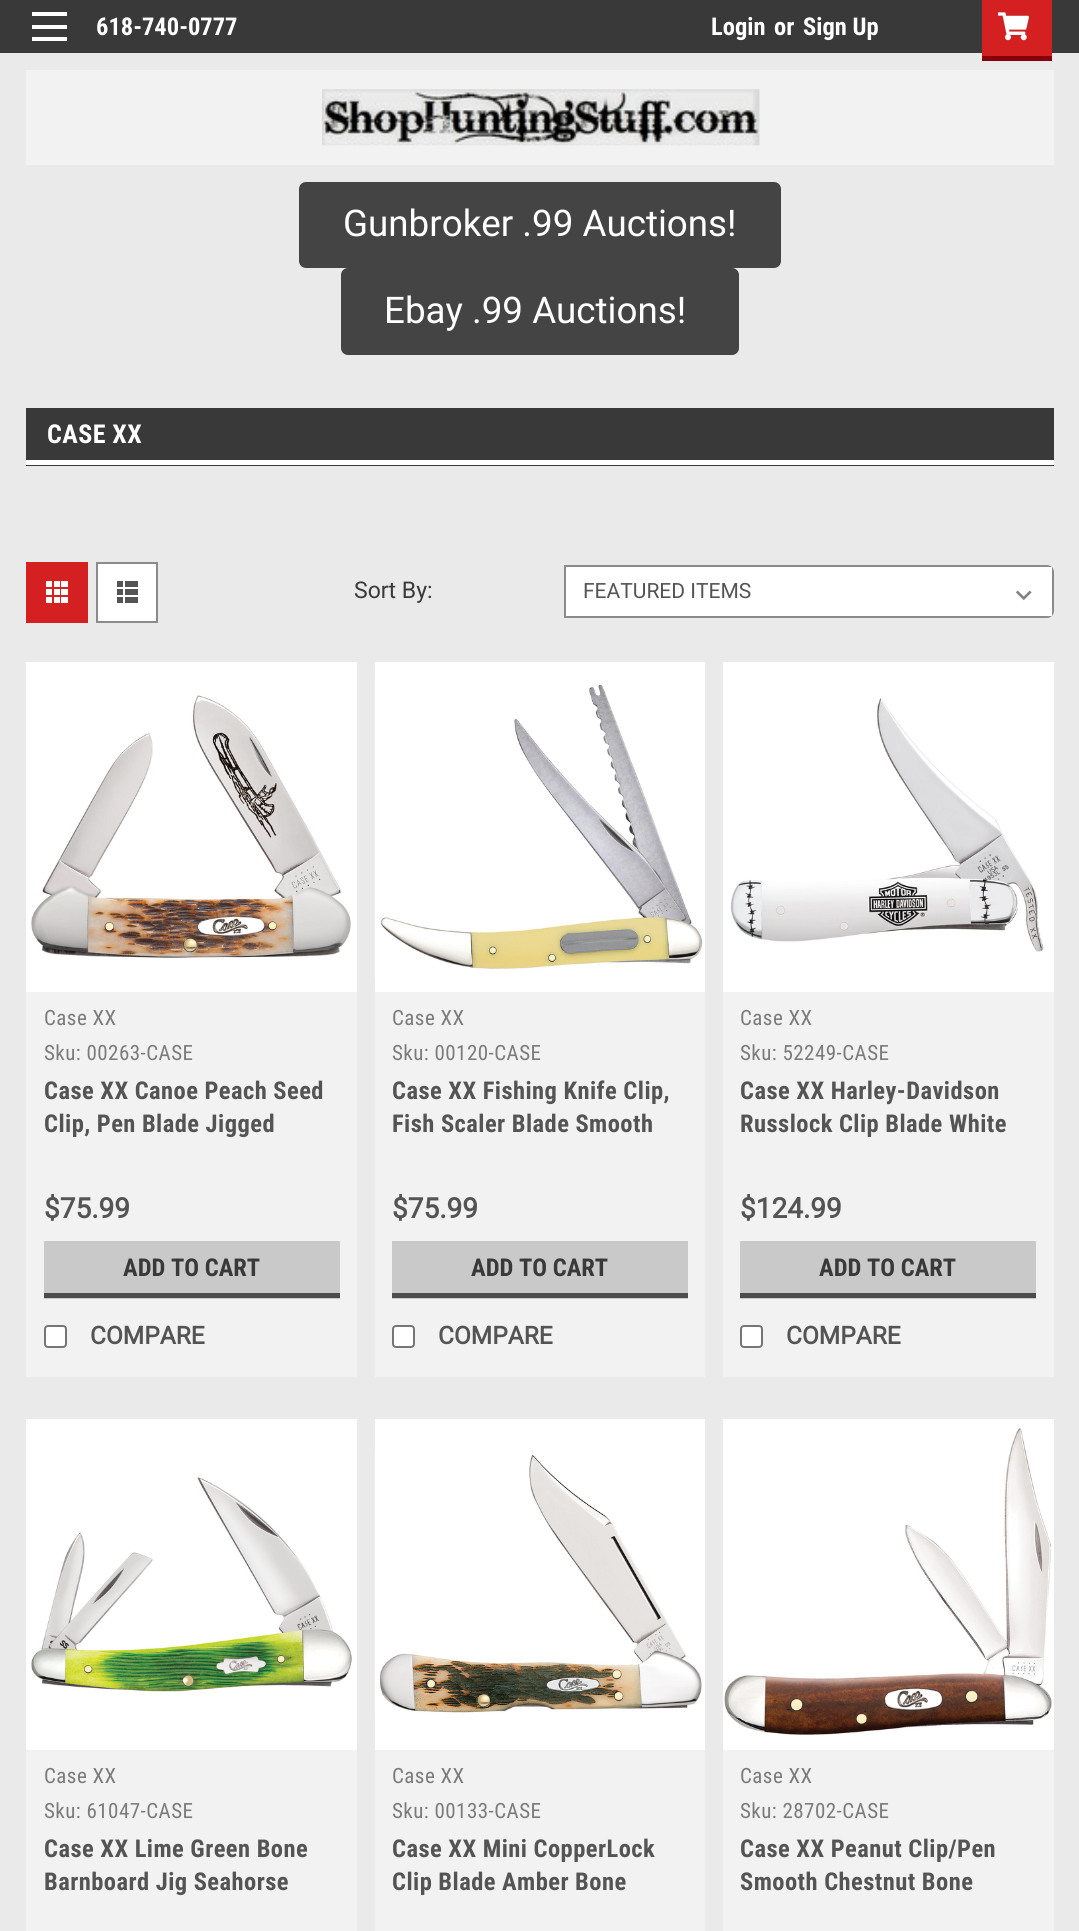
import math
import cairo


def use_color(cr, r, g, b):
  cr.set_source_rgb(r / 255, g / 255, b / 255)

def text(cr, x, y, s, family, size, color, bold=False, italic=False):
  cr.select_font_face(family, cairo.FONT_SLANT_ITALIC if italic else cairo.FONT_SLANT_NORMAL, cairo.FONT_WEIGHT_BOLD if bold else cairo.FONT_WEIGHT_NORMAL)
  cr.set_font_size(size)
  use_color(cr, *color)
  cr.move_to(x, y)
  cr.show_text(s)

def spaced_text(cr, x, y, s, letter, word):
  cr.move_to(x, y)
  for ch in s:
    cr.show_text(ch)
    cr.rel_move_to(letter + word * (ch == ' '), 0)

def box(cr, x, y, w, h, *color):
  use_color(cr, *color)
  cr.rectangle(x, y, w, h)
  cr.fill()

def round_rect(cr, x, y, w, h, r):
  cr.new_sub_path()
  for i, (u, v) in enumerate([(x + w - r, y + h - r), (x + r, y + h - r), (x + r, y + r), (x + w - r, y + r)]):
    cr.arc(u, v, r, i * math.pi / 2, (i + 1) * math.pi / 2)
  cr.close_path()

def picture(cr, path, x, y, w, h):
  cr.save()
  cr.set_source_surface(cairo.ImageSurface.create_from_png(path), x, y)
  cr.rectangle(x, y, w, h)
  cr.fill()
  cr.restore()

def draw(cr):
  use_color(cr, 234, 234, 234)
  cr.paint()
  box(cr, 0, 0, 1079, 53, 57, 57, 57)
  box(cr, 32, 25, 35, 4, 255, 255, 255)
  box(cr, 32, 12, 35, 4, 255, 255, 255)
  box(cr, 32, 37, 35, 4, 255, 255, 255)
  box(cr, 982, 0, 70, 56, 212, 32, 32)
  box(cr, 982, 56, 70, 5, 134, 1, 9)
  picture(cr, "img_01.png", 998, 12, 31, 29)
  box(cr, 26, 70, 1028, 95, 242, 242, 242)
  picture(cr, "img_02.png", 322, 89, 438, 57)
  use_color(cr, 68, 68, 68)
  round_rect(cr, 300, 183, 480, 84, 6)
  cr.fill_preserve()
  cr.stroke()
  round_rect(cr, 342, 269, 396, 85, 6)
  cr.fill_preserve()
  cr.stroke()
  box(cr, 26, 408, 1028, 58, 57, 57, 57)
  box(cr, 26, 460, 1028, 5, 255, 255, 255)
  box(cr, 26, 562, 62, 61, 212, 32, 32)
  picture(cr, "img_03.png", 46, 581, 22, 22)
  use_color(cr, 255, 255, 255)
  cr.rectangle(97, 563, 60, 59)
  cr.fill_preserve()
  use_color(cr, 139, 139, 139)
  cr.stroke()
  picture(cr, "img_04.png", 117, 581, 21, 22)
  use_color(cr, 255, 255, 255)
  cr.new_path()
  cr.move_to(564, 565)
  cr.line_to(1047, 565)
  cr.curve_to(1051, 565, 1054, 568, 1054, 572)
  cr.line_to(1054, 611)
  cr.curve_to(1054, 615, 1051, 618, 1047, 618)
  cr.line_to(564, 618)
  cr.close_path()
  cr.fill()
  picture(cr, "img_05.png", 1016, 590, 16, 11)
  use_color(cr, 139, 139, 139)
  cr.set_fill_rule(cairo.FILL_RULE_EVEN_ODD)
  cr.new_path()
  cr.move_to(564, 565)
  cr.line_to(564, 618)
  cr.line_to(1047, 618)
  cr.curve_to(1049, 618, 1051, 617, 1052, 616)
  cr.line_to(566, 616)
  cr.line_to(566, 567)
  cr.line_to(1052, 567)
  cr.curve_to(1051, 566, 1049, 565, 1047, 565)
  cr.close_path()
  cr.move_to(1054, 572)
  cr.curve_to(1054, 570, 1053, 568, 1052, 567)
  cr.line_to(1052, 616)
  cr.curve_to(1053, 615, 1054, 613, 1054, 611)
  cr.close_path()
  cr.fill()
  box(cr, 26, 992, 331, 385, 242, 242, 242)
  box(cr, 26, 662, 331, 330, 255, 255, 255)
  picture(cr, "img_06.png", 31, 695, 320, 263)
  box(cr, 44, 1241, 296, 58, 202, 201, 201)
  box(cr, 44, 1293, 296, 5, 76, 76, 76)
  use_color(cr, 255, 255, 255)
  round_rect(cr, 45, 1326, 21, 21, 3)
  cr.fill_preserve()
  use_color(cr, 118, 118, 118)
  cr.stroke()
  box(cr, 375, 992, 330, 385, 242, 242, 242)
  box(cr, 375, 662, 330, 330, 255, 255, 255)
  picture(cr, "img_07.png", 374, 676, 329, 302)
  box(cr, 392, 1241, 296, 58, 202, 201, 201)
  box(cr, 392, 1293, 296, 5, 76, 76, 76)
  use_color(cr, 255, 255, 255)
  round_rect(cr, 393, 1326, 21, 21, 3)
  cr.fill_preserve()
  use_color(cr, 118, 118, 118)
  cr.stroke()
  box(cr, 723, 992, 331, 385, 242, 242, 242)
  box(cr, 723, 662, 331, 330, 255, 255, 255)
  picture(cr, "img_08.png", 730, 698, 314, 254)
  box(cr, 740, 1241, 296, 58, 202, 201, 201)
  box(cr, 740, 1293, 296, 5, 76, 76, 76)
  use_color(cr, 255, 255, 255)
  round_rect(cr, 741, 1326, 21, 21, 3)
  cr.fill_preserve()
  use_color(cr, 118, 118, 118)
  cr.stroke()
  box(cr, 26, 1750, 331, 181, 242, 242, 242)
  box(cr, 26, 1419, 331, 331, 255, 255, 255)
  picture(cr, "img_09.png", 31, 1477, 321, 215)
  box(cr, 375, 1750, 330, 181, 242, 242, 242)
  box(cr, 375, 1419, 330, 331, 255, 255, 255)
  picture(cr, "img_10.png", 374, 1451, 328, 267)
  box(cr, 723, 1750, 331, 181, 242, 242, 242)
  box(cr, 723, 1419, 331, 331, 255, 255, 255)
  picture(cr, "img_11.png", 724, 1428, 328, 307)
  text(cr, 96, 35, "618-740-0777", "Roboto Condensed", 24.5, (255, 255, 255), bold=True)
  text(cr, 711, 35, "Login", "Roboto Condensed", 24.5, (255, 255, 255), bold=True)
  text(cr, 774, 35, "or", "Roboto Condensed", 24.5, (255, 255, 255), bold=True)
  text(cr, 803, 35, "Sign Up", "Roboto Condensed", 24.5, (255, 255, 255), bold=True)
  text(cr, 343, 236, "Gunbroker .99 Auctions!", "Roboto", 36.75, (255, 255, 255))
  text(cr, 384, 323, "Ebay .99 Auctions!", "Roboto", 36.75, (255, 255, 255))
  cr.select_font_face("Roboto Condensed", cairo.FONT_SLANT_NORMAL, cairo.FONT_WEIGHT_BOLD)
  cr.set_font_size(26)
  spaced_text(cr, 47, 443, "CASE XX", 0.45, 0)
  text(cr, 354, 598, "Sort By:", "Roboto", 23, (57, 57, 57))
  text(cr, 583, 598, "FEATURED ITEMS", "Roboto", 21, (84, 84, 84))
  cr.select_font_face("Roboto Condensed")
  use_color(cr, 123, 123, 123)
  spaced_text(cr, 44, 1025, "Case XX", 0.45, 0)
  spaced_text(cr, 44, 1060, "Sku: 00263-CASE", 0.45, 0)
  cr.select_font_face("Roboto Condensed", cairo.FONT_SLANT_NORMAL, cairo.FONT_WEIGHT_BOLD)
  cr.set_font_size(24.5)
  use_color(cr, 84, 84, 84)
  spaced_text(cr, 44, 1099, "Case XX Canoe Peach Seed", 0.45, 0)
  spaced_text(cr, 44, 1132, "Clip, Pen Blade Jigged", 0.45, 0)
  text(cr, 44, 1218, "$75.99", "Roboto", 28, (84, 84, 84), bold=True)
  text(cr, 123, 1276, "ADD TO CART", "Roboto Condensed", 24.5, (57, 57, 57), bold=True)
  text(cr, 90, 1344, "COMPARE", "Roboto", 24.5, (84, 84, 84), bold=True)
  cr.select_font_face("Roboto Condensed")
  cr.set_font_size(21)
  use_color(cr, 123, 123, 123)
  spaced_text(cr, 392, 1025, "Case XX", 0.45, 0)
  spaced_text(cr, 392, 1060, "Sku: 00120-CASE", 0.45, 0)
  cr.select_font_face("Roboto Condensed", cairo.FONT_SLANT_NORMAL, cairo.FONT_WEIGHT_BOLD)
  cr.set_font_size(24.5)
  use_color(cr, 84, 84, 84)
  spaced_text(cr, 392, 1099, "Case XX Fishing Knife Clip,", 0.45, 0)
  spaced_text(cr, 392, 1132, "Fish Scaler Blade Smooth", 0.45, 0)
  text(cr, 392, 1218, "$75.99", "Roboto", 28, (84, 84, 84), bold=True)
  text(cr, 471, 1276, "ADD TO CART", "Roboto Condensed", 24.5, (57, 57, 57), bold=True)
  text(cr, 438, 1344, "COMPARE", "Roboto", 24.5, (84, 84, 84), bold=True)
  cr.select_font_face("Roboto Condensed")
  cr.set_font_size(21)
  use_color(cr, 123, 123, 123)
  spaced_text(cr, 740, 1025, "Case XX", 0.45, 0)
  spaced_text(cr, 740, 1060, "Sku: 52249-CASE", 0.45, 0)
  cr.select_font_face("Roboto Condensed", cairo.FONT_SLANT_NORMAL, cairo.FONT_WEIGHT_BOLD)
  cr.set_font_size(24.5)
  use_color(cr, 84, 84, 84)
  spaced_text(cr, 740, 1099, "Case XX Harley-Davidson", 0.45, 0)
  spaced_text(cr, 740, 1132, "Russlock Clip Blade White", 0.45, 0)
  text(cr, 740, 1218, "$124.99", "Roboto", 28, (84, 84, 84), bold=True)
  text(cr, 819, 1276, "ADD TO CART", "Roboto Condensed", 24.5, (57, 57, 57), bold=True)
  text(cr, 786, 1344, "COMPARE", "Roboto", 24.5, (84, 84, 84), bold=True)
  cr.select_font_face("Roboto Condensed")
  cr.set_font_size(21)
  use_color(cr, 123, 123, 123)
  spaced_text(cr, 44, 1783, "Case XX", 0.45, 0)
  spaced_text(cr, 44, 1818, "Sku: 61047-CASE", 0.45, 0)
  cr.select_font_face("Roboto Condensed", cairo.FONT_SLANT_NORMAL, cairo.FONT_WEIGHT_BOLD)
  cr.set_font_size(24.5)
  use_color(cr, 84, 84, 84)
  spaced_text(cr, 44, 1857, "Case XX Lime Green Bone", 0.45, 0)
  spaced_text(cr, 44, 1890, "Barnboard Jig Seahorse", 0.45, 0)
  cr.select_font_face("Roboto Condensed")
  cr.set_font_size(21)
  use_color(cr, 123, 123, 123)
  spaced_text(cr, 392, 1783, "Case XX", 0.45, 0)
  spaced_text(cr, 392, 1818, "Sku: 00133-CASE", 0.45, 0)
  cr.select_font_face("Roboto Condensed", cairo.FONT_SLANT_NORMAL, cairo.FONT_WEIGHT_BOLD)
  cr.set_font_size(24.5)
  use_color(cr, 84, 84, 84)
  spaced_text(cr, 392, 1857, "Case XX Mini CopperLock", 0.45, 0)
  spaced_text(cr, 392, 1890, "Clip Blade Amber Bone", 0.45, 0)
  cr.select_font_face("Roboto Condensed")
  cr.set_font_size(21)
  use_color(cr, 123, 123, 123)
  spaced_text(cr, 740, 1783, "Case XX", 0.45, 0)
  spaced_text(cr, 740, 1818, "Sku: 28702-CASE", 0.45, 0)
  cr.select_font_face("Roboto Condensed", cairo.FONT_SLANT_NORMAL, cairo.FONT_WEIGHT_BOLD)
  cr.set_font_size(24.5)
  use_color(cr, 84, 84, 84)
  spaced_text(cr, 740, 1857, "Case XX Peanut Clip/Pen", 0.45, 0)
  spaced_text(cr, 740, 1890, "Smooth Chestnut Bone", 0.45, 0)


surface = cairo.ImageSurface(cairo.FORMAT_RGB24, 1079, 1931)
cr = cairo.Context(surface)
options = cairo.FontOptions()
options.set_hint_metrics(cairo.HINT_METRICS_OFF)
options.set_hint_style(cairo.HINT_STYLE_NONE)
cr.set_font_options(options)
cr.set_miter_limit(4)
draw(cr)
surface.write_to_png("out.png")
